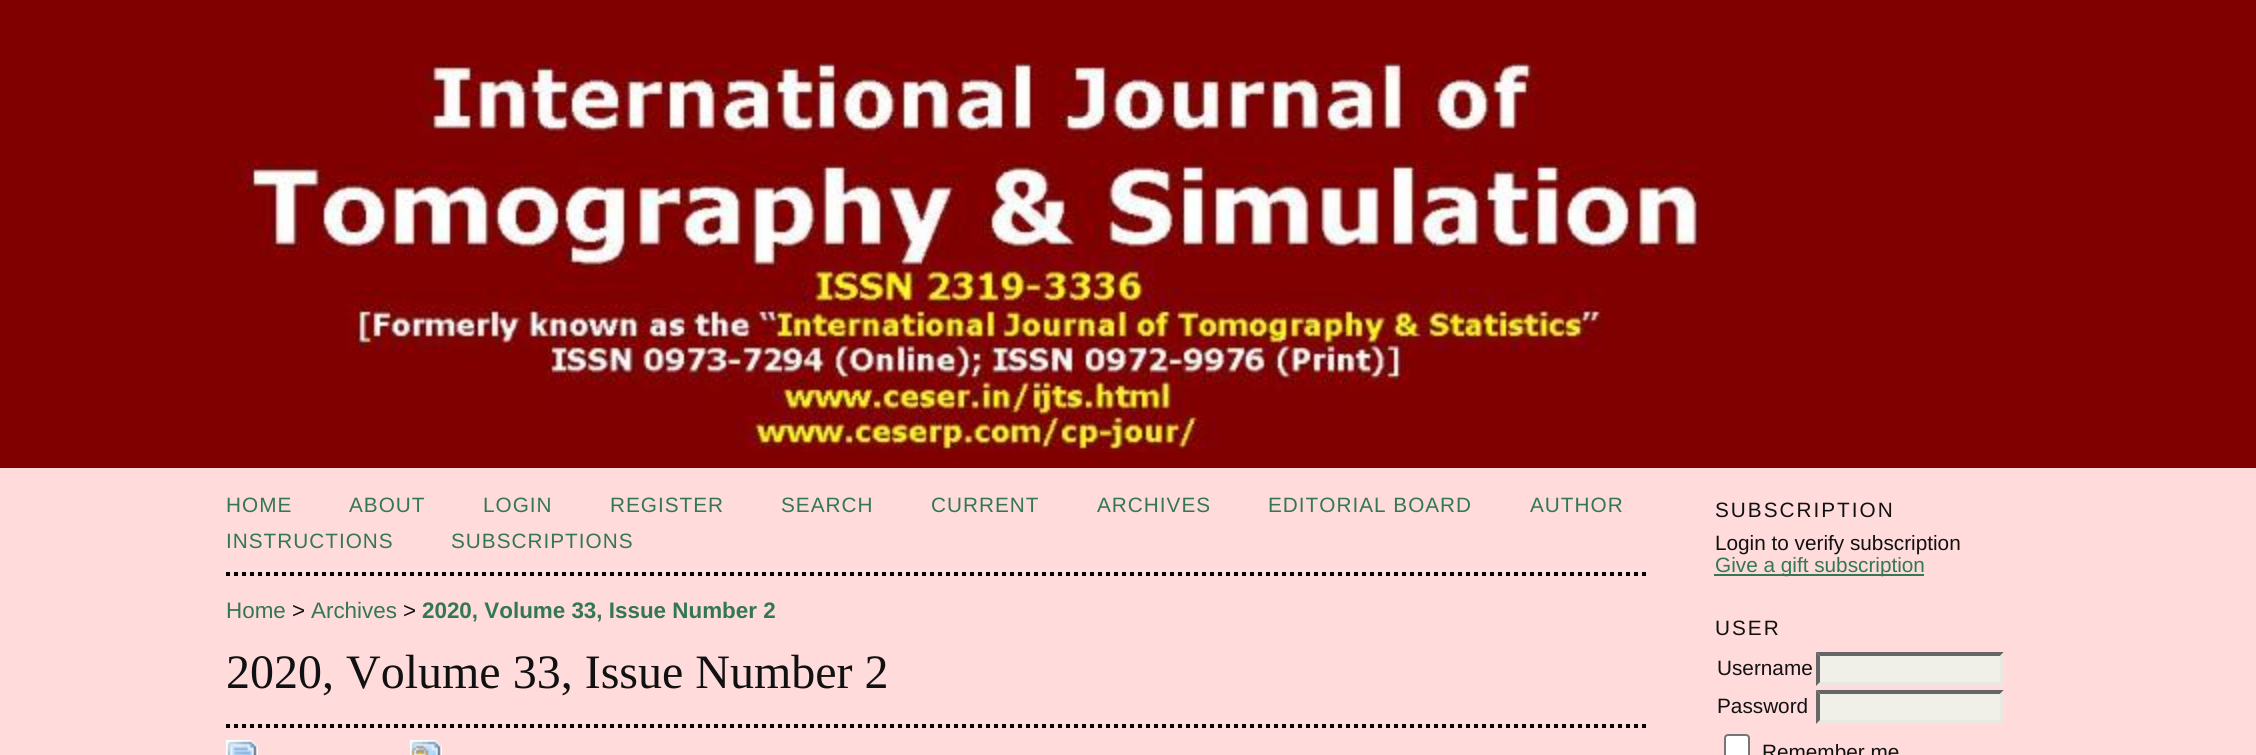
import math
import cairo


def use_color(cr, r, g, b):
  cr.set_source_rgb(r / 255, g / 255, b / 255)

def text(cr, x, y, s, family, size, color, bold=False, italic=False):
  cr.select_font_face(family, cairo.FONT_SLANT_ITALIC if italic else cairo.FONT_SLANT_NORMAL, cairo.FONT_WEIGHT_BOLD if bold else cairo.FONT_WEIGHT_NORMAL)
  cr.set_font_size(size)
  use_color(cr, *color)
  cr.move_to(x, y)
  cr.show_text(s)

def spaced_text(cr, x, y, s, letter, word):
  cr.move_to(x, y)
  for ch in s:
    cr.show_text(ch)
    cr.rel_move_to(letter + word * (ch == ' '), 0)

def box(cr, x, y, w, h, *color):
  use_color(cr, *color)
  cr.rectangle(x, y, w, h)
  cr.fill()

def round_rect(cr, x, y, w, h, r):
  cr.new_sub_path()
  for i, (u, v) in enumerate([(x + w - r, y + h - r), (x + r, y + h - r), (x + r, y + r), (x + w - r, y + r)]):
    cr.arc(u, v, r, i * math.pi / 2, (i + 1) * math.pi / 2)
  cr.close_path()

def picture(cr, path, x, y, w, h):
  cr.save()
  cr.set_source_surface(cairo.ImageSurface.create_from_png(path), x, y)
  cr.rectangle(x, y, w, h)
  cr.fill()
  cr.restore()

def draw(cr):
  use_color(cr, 255, 219, 219)
  cr.paint()
  box(cr, 0, 0, 2256, 468, 128, 0, 0)
  picture(cr, "img_01.png", 229, 61, 1472, 391)
  cr.new_path()
  cr.move_to(226, 574)
  cr.line_to(1646, 574)
  use_color(cr, 0, 0, 0)
  cr.set_line_width(4)
  cr.set_dash([4, 4])
  cr.stroke()
  cr.new_path()
  cr.move_to(226, 726)
  cr.line_to(1646, 726)
  cr.stroke()
  picture(cr, "img_02.png", 226, 740, 32, 15)
  picture(cr, "img_03.png", 410, 740, 32, 15)
  box(cr, 1714, 574, 210, 2, 51, 119, 85)
  box(cr, 1816, 652, 188, 34, 240, 240, 232)
  use_color(cr, 102, 102, 102)
  cr.new_path()
  cr.move_to(1816, 652)
  cr.line_to(2004, 652)
  cr.line_to(2000, 656)
  cr.line_to(1820, 656)
  cr.close_path()
  cr.fill()
  use_color(cr, 232, 232, 225)
  cr.new_path()
  cr.move_to(2004, 652)
  cr.line_to(2004, 686)
  cr.line_to(2000, 682)
  cr.line_to(2000, 656)
  cr.close_path()
  cr.fill()
  cr.new_path()
  cr.move_to(2004, 686)
  cr.line_to(1816, 686)
  cr.line_to(1820, 682)
  cr.line_to(2000, 682)
  cr.close_path()
  cr.fill()
  use_color(cr, 102, 102, 102)
  cr.new_path()
  cr.move_to(1816, 686)
  cr.line_to(1816, 652)
  cr.line_to(1820, 656)
  cr.line_to(1820, 682)
  cr.close_path()
  cr.fill()
  box(cr, 1816, 690, 188, 34, 240, 240, 232)
  use_color(cr, 102, 102, 102)
  cr.new_path()
  cr.move_to(1816, 690)
  cr.line_to(2004, 690)
  cr.line_to(2000, 694)
  cr.line_to(1820, 694)
  cr.close_path()
  cr.fill()
  use_color(cr, 232, 232, 225)
  cr.new_path()
  cr.move_to(2004, 690)
  cr.line_to(2004, 724)
  cr.line_to(2000, 720)
  cr.line_to(2000, 694)
  cr.close_path()
  cr.fill()
  cr.new_path()
  cr.move_to(2004, 724)
  cr.line_to(1816, 724)
  cr.line_to(1820, 720)
  cr.line_to(2000, 720)
  cr.close_path()
  cr.fill()
  use_color(cr, 102, 102, 102)
  cr.new_path()
  cr.move_to(1816, 724)
  cr.line_to(1816, 690)
  cr.line_to(1820, 694)
  cr.line_to(1820, 720)
  cr.close_path()
  cr.fill()
  use_color(cr, 255, 255, 255)
  round_rect(cr, 1725, 735, 24, 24, 3)
  cr.fill_preserve()
  use_color(cr, 118, 118, 118)
  cr.set_line_width(2)
  cr.set_dash([])
  cr.stroke()
  cr.select_font_face("Liberation Sans")
  cr.set_font_size(20.75)
  use_color(cr, 51, 119, 85)
  spaced_text(cr, 226, 512, "HOME", 1, 0)
  spaced_text(cr, 349, 512, "ABOUT", 1, 0)
  spaced_text(cr, 483, 512, "LOGIN", 1, 0)
  spaced_text(cr, 610, 512, "REGISTER", 1, 0)
  spaced_text(cr, 781, 512, "SEARCH", 1, 0)
  spaced_text(cr, 931, 512, "CURRENT", 1, 0)
  spaced_text(cr, 1097, 512, "ARCHIVES", 1, 0)
  spaced_text(cr, 1268, 512, "EDITORIAL BOARD", 1, 0)
  spaced_text(cr, 1530, 512, "AUTHOR", 1, 0)
  spaced_text(cr, 226, 548, "INSTRUCTIONS", 1, 0)
  spaced_text(cr, 451, 548, "SUBSCRIPTIONS", 1, 0)
  text(cr, 226, 618, "Home", "Liberation Sans", 22.4, (51, 119, 85))
  text(cr, 292, 618, ">", "Liberation Sans", 22.4, (17, 17, 17))
  text(cr, 311, 618, "Archives", "Liberation Sans", 22.4, (51, 119, 85))
  text(cr, 403, 618, ">", "Liberation Sans", 22.4, (17, 17, 17))
  text(cr, 422, 618, "2020, Volume 33, Issue Number 2", "Liberation Sans", 22.4, (51, 119, 85), bold=True)
  text(cr, 226, 688, "2020, Volume 33, Issue Number 2", "Liberation Serif", 48, (17, 17, 17))
  cr.select_font_face("Liberation Sans")
  cr.set_font_size(20.75)
  spaced_text(cr, 1715, 517, "SUBSCRIPTION", 2, 0)
  text(cr, 1715, 550, "Login to verify subscription", "Liberation Sans", 20.75, (17, 17, 17))
  text(cr, 1715, 572, "Give a gift subscription", "Liberation Sans", 20.75, (51, 119, 85))
  use_color(cr, 17, 17, 17)
  spaced_text(cr, 1715, 635, "USER", 2, 0)
  text(cr, 1717, 675, "Username", "Liberation Sans", 20.75, (17, 17, 17))
  text(cr, 1717, 713, "Password", "Liberation Sans", 20.75, (17, 17, 17))
  text(cr, 1762, 759, "Remember me", "Liberation Sans", 20.75, (17, 17, 17))


surface = cairo.ImageSurface(cairo.FORMAT_RGB24, 2256, 755)
cr = cairo.Context(surface)
options = cairo.FontOptions()
options.set_hint_metrics(cairo.HINT_METRICS_OFF)
options.set_hint_style(cairo.HINT_STYLE_NONE)
cr.set_font_options(options)
cr.set_miter_limit(4)
draw(cr)
surface.write_to_png("out.png")
